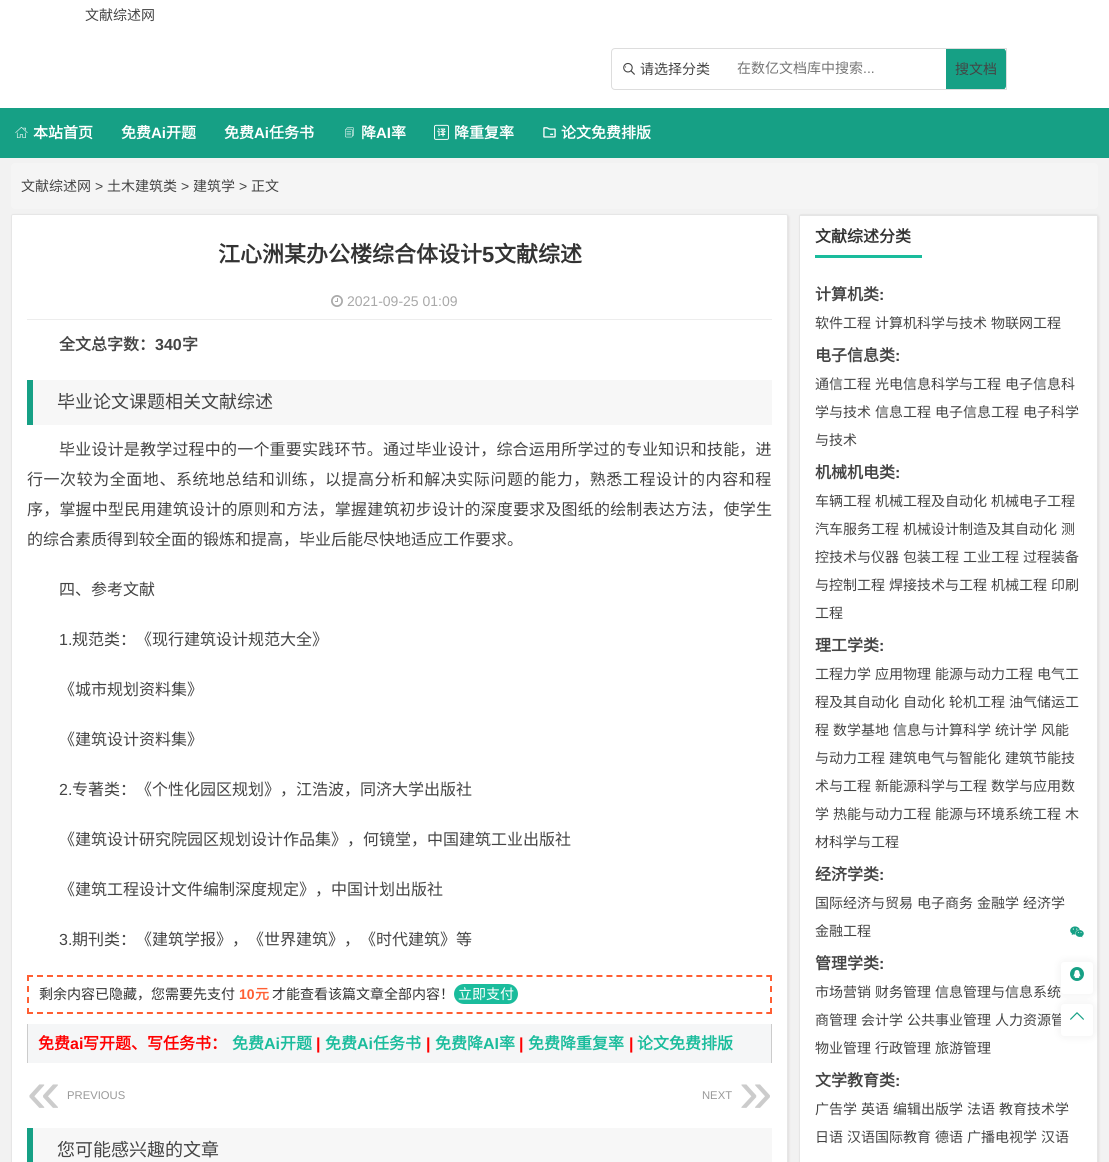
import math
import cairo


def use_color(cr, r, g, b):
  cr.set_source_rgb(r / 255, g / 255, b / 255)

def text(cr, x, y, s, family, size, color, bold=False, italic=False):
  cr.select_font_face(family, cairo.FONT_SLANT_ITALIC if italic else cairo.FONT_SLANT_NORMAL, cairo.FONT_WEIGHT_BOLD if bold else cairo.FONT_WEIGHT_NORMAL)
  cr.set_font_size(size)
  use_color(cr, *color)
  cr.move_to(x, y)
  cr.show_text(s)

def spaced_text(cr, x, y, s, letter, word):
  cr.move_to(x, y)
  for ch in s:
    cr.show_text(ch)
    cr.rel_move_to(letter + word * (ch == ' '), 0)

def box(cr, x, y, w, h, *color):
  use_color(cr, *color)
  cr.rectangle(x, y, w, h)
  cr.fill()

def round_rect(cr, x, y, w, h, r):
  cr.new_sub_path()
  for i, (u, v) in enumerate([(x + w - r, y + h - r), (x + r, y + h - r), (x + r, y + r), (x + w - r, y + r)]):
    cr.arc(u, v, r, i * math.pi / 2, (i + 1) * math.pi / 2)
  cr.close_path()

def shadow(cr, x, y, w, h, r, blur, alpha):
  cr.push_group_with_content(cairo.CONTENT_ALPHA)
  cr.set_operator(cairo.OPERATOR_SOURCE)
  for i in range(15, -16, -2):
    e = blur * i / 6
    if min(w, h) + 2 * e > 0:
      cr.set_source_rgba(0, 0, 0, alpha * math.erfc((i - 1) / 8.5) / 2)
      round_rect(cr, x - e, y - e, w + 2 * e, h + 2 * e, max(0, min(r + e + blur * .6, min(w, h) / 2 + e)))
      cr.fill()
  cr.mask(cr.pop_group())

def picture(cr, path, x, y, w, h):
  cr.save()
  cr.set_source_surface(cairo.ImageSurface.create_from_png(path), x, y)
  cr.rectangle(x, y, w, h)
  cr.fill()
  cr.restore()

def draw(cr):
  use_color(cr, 242, 242, 242)
  cr.paint()
  box(cr, 0, 0, 1109, 108, 255, 255, 255)
  cr.new_path()
  cr.move_to(615, 48.5)
  cr.line_to(1006.5, 48.5)
  cr.line_to(1006.5, 89.5)
  cr.line_to(615, 89.5)
  cr.curve_to(613, 89.5, 611.5, 88, 611.5, 86)
  cr.line_to(611.5, 52)
  cr.curve_to(611.5, 50, 613, 48.5, 615, 48.5)
  cr.close_path()
  use_color(cr, 221, 221, 221)
  cr.set_line_width(1)
  cr.stroke()
  picture(cr, "img_01.png", 623, 62, 12, 13)
  cr.save()
  cr.new_path()
  cr.move_to(615, 49)
  cr.line_to(1006, 49)
  cr.line_to(1006, 89)
  cr.line_to(615, 89)
  cr.curve_to(613.5, 89, 612, 87.5, 612, 86)
  cr.line_to(612, 52)
  cr.curve_to(612, 50.5, 613.5, 49, 615, 49)
  cr.close_path()
  cr.clip()
  use_color(cr, 22, 160, 133)
  cr.new_path()
  cr.move_to(946, 48)
  cr.line_to(1002, 48)
  cr.curve_to(1004, 48, 1006, 50, 1006, 52)
  cr.line_to(1006, 86)
  cr.curve_to(1006, 88, 1004, 90, 1002, 90)
  cr.line_to(946, 90)
  cr.close_path()
  cr.fill()
  cr.restore()
  box(cr, 0, 108, 1109, 50, 22, 160, 133)
  picture(cr, "img_02.png", 15, 126, 13, 12)
  picture(cr, "img_03.png", 345, 127, 9, 11)
  picture(cr, "img_04.png", 434, 124, 15, 16)
  picture(cr, "img_05.png", 543, 127, 13, 11)
  use_color(cr, 245, 245, 245)
  round_rect(cr, 11, 163, 1087, 46, 4)
  cr.fill()
  use_color(cr, 226, 222, 222)
  shadow(cr, 12, 215, 777, 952, 2, 1, 1)
  use_color(cr, 255, 255, 255)
  round_rect(cr, 11.5, 214.5, 776, 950, 1.5)
  cr.fill_preserve()
  use_color(cr, 230, 230, 230)
  cr.stroke()
  box(cr, 27, 319, 745, 1, 237, 237, 237)
  picture(cr, "img_06.png", 331, 295, 12, 12)
  box(cr, 33, 380, 739, 45, 247, 247, 247)
  box(cr, 27, 380, 6, 45, 22, 160, 133)
  cr.new_path()
  cr.move_to(27, 976)
  cr.line_to(772, 976)
  use_color(cr, 255, 95, 51)
  cr.set_line_width(2)
  cr.set_dash([6, 3.99])
  cr.stroke()
  cr.new_path()
  cr.move_to(771, 975)
  cr.line_to(771, 1014)
  cr.set_dash([6, 5])
  cr.stroke()
  cr.new_path()
  cr.move_to(27, 1013)
  cr.line_to(772, 1013)
  cr.set_dash([6, 3.99])
  cr.stroke()
  cr.new_path()
  cr.move_to(28, 975)
  cr.line_to(28, 1014)
  cr.set_dash([6, 5])
  cr.stroke()
  use_color(cr, 26, 188, 156)
  round_rect(cr, 454, 984, 64, 20, 10)
  cr.fill()
  box(cr, 28, 1024, 743, 39, 245, 246, 247)
  box(cr, 771, 1024, 1, 39, 204, 204, 204)
  box(cr, 27, 1024, 1, 39, 204, 204, 204)
  box(cr, 33, 1128, 739, 34, 247, 247, 247)
  box(cr, 27, 1128, 6, 34, 22, 160, 133)
  use_color(cr, 226, 222, 222)
  shadow(cr, 800, 215, 299, 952, 2, 1, 1)
  use_color(cr, 255, 255, 255)
  round_rect(cr, 799.5, 214.5, 298, 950, 1.5)
  cr.fill_preserve()
  use_color(cr, 230, 230, 230)
  cr.set_line_width(1)
  cr.set_dash([])
  cr.stroke()
  box(cr, 800, 215, 297, 1, 229, 229, 229)
  box(cr, 815, 255, 107, 3, 26, 188, 156)
  picture(cr, "img_07.png", 1070, 926, 14, 12)
  use_color(cr, 0, 0, 0)
  shadow(cr, 1061, 962, 32, 32, 3, 5, 0.07)
  use_color(cr, 255, 255, 255)
  round_rect(cr, 1061, 962, 32, 32, 3)
  cr.fill()
  picture(cr, "img_08.png", 1070, 967, 14, 14)
  use_color(cr, 0, 0, 0)
  shadow(cr, 1061, 1004, 32, 32, 3, 5, 0.07)
  text(cr, 85, 20, "文献综述网", "Noto Sans CJK SC", 14, (68, 68, 68))
  text(cr, 640, 74, "请选择分类", "Noto Sans CJK SC", 14, (68, 68, 68))
  text(cr, 737, 73, "在数亿文档库中搜索", "Noto Sans CJK SC", 14, (117, 117, 117))
  text(cr, 863, 73, "...", "Liberation Sans", 14, (117, 117, 117))
  text(cr, 955, 74, "搜文档", "Noto Sans CJK SC", 14, (68, 68, 68))
  text(cr, 33, 138, "本站首页", "Noto Sans CJK SC", 15, (255, 255, 255), bold=True)
  text(cr, 121, 138, "免费", "Noto Sans CJK SC", 15, (255, 255, 255), bold=True)
  text(cr, 151, 138, "Ai", "Liberation Sans", 15, (255, 255, 255), bold=True)
  text(cr, 166, 138, "开题", "Noto Sans CJK SC", 15, (255, 255, 255), bold=True)
  text(cr, 224, 138, "免费", "Noto Sans CJK SC", 15, (255, 255, 255), bold=True)
  text(cr, 254, 138, "Ai", "Liberation Sans", 15, (255, 255, 255), bold=True)
  text(cr, 269, 138, "任务书", "Noto Sans CJK SC", 15, (255, 255, 255), bold=True)
  text(cr, 361, 138, "降", "Noto Sans CJK SC", 15, (255, 255, 255), bold=True)
  text(cr, 376, 138, "AI", "Liberation Sans", 15, (255, 255, 255), bold=True)
  text(cr, 391, 138, "率", "Noto Sans CJK SC", 15, (255, 255, 255), bold=True)
  text(cr, 454, 138, "降重复率", "Noto Sans CJK SC", 15, (255, 255, 255), bold=True)
  text(cr, 561, 138, "论文免费排版", "Noto Sans CJK SC", 15, (255, 255, 255), bold=True)
  text(cr, 21, 191, "文献综述网", "Noto Sans CJK SC", 14, (68, 68, 68))
  text(cr, 95, 191, ">", "Liberation Sans", 14, (68, 68, 68))
  text(cr, 107, 191, "土木建筑类", "Noto Sans CJK SC", 14, (68, 68, 68))
  text(cr, 181, 191, ">", "Liberation Sans", 14, (68, 68, 68))
  text(cr, 193, 191, "建筑学", "Noto Sans CJK SC", 14, (68, 68, 68))
  text(cr, 239, 191, ">", "Liberation Sans", 14, (68, 68, 68))
  text(cr, 251, 191, "正文", "Noto Sans CJK SC", 14, (68, 68, 68))
  text(cr, 218, 262, "江心洲某办公楼综合体设计", "Noto Sans CJK SC", 22, (51, 51, 51), bold=True)
  text(cr, 482, 262, "5", "Liberation Sans", 22, (51, 51, 51), bold=True)
  text(cr, 494, 262, "文献综述", "Noto Sans CJK SC", 22, (51, 51, 51), bold=True)
  text(cr, 347, 306, "2021-09-25 01:09", "Liberation Sans", 14, (169, 169, 169))
  text(cr, 59, 350, "全文总字数：", "Noto Sans CJK SC", 16, (68, 68, 68), bold=True)
  text(cr, 155, 350, "340", "Liberation Sans", 16, (68, 68, 68), bold=True)
  text(cr, 182, 350, "字", "Noto Sans CJK SC", 16, (68, 68, 68), bold=True)
  text(cr, 57, 408, "毕业论文课题相关文献综述", "Noto Sans CJK SC", 18, (68, 68, 68))
  cr.set_font_size(16)
  spaced_text(cr, 59, 455, "毕业设计是教学过程中的一个重要实践环节。通过毕业设计，综合运用所学过的专业知识和技能，进", 0.2, 0)
  spaced_text(cr, 27, 485, "行一次较为全面地、系统地总结和训练，以提高分析和解决实际问题的能力，熟悉工程设计的内容和程", 0.55, 0)
  spaced_text(cr, 27, 515, "序，掌握中型民用建筑设计的原则和方法，掌握建筑初步设计的深度要求及图纸的绘制表达方法，使学生", 0.2, 0)
  text(cr, 27, 545, "的综合素质得到较全面的锻炼和提高，毕业后能尽快地适应工作要求。", "Noto Sans CJK SC", 16, (68, 68, 68))
  text(cr, 59, 595, "四、参考文献", "Noto Sans CJK SC", 16, (68, 68, 68))
  text(cr, 59, 645, "1.", "Liberation Sans", 16, (68, 68, 68))
  text(cr, 72, 645, "规范类：《现行建筑设计规范大全》", "Noto Sans CJK SC", 16, (68, 68, 68))
  text(cr, 59, 695, "《城市规划资料集》", "Noto Sans CJK SC", 16, (68, 68, 68))
  text(cr, 59, 745, "《建筑设计资料集》", "Noto Sans CJK SC", 16, (68, 68, 68))
  text(cr, 59, 795, "2.", "Liberation Sans", 16, (68, 68, 68))
  text(cr, 72, 795, "专著类：《个性化园区规划》，江浩波，同济大学出版社", "Noto Sans CJK SC", 16, (68, 68, 68))
  text(cr, 59, 845, "《建筑设计研究院园区规划设计作品集》，何镜堂，中国建筑工业出版社", "Noto Sans CJK SC", 16, (68, 68, 68))
  text(cr, 59, 895, "《建筑工程设计文件编制深度规定》，中国计划出版社", "Noto Sans CJK SC", 16, (68, 68, 68))
  text(cr, 59, 945, "3.", "Liberation Sans", 16, (68, 68, 68))
  text(cr, 72, 945, "期刊类：《建筑学报》，《世界建筑》，《时代建筑》等", "Noto Sans CJK SC", 16, (68, 68, 68))
  text(cr, 39, 999, "剩余内容已隐藏，您需要先支付", "Noto Sans CJK SC", 14, (51, 51, 51))
  text(cr, 239, 999, "10", "Liberation Sans", 14, (255, 95, 51), bold=True)
  text(cr, 255, 999, "元", "Noto Sans CJK SC", 14, (255, 95, 51), bold=True)
  text(cr, 272, 999, "才能查看该篇文章全部内容！", "Noto Sans CJK SC", 14, (51, 51, 51))
  text(cr, 458, 999, "立即支付", "Noto Sans CJK SC", 14, (255, 255, 255))
  text(cr, 38, 1049, "免费", "Noto Sans CJK SC", 16, (255, 0, 0), bold=True)
  text(cr, 70, 1049, "ai", "Liberation Sans", 16, (255, 0, 0), bold=True)
  text(cr, 83, 1049, "写开题、写任务书：", "Noto Sans CJK SC", 16, (255, 0, 0), bold=True)
  text(cr, 232, 1049, "免费", "Noto Sans CJK SC", 16, (26, 188, 156), bold=True)
  text(cr, 264, 1049, "Ai", "Liberation Sans", 16, (26, 188, 156), bold=True)
  text(cr, 280, 1049, "开题", "Noto Sans CJK SC", 16, (26, 188, 156), bold=True)
  text(cr, 316, 1049, "|", "Liberation Sans", 16, (255, 0, 0), bold=True)
  text(cr, 325, 1049, "免费", "Noto Sans CJK SC", 16, (26, 188, 156), bold=True)
  text(cr, 357, 1049, "Ai", "Liberation Sans", 16, (26, 188, 156), bold=True)
  text(cr, 373, 1049, "任务书", "Noto Sans CJK SC", 16, (26, 188, 156), bold=True)
  text(cr, 426, 1049, "|", "Liberation Sans", 16, (255, 0, 0), bold=True)
  text(cr, 435, 1049, "免费降", "Noto Sans CJK SC", 16, (26, 188, 156), bold=True)
  text(cr, 483, 1049, "AI", "Liberation Sans", 16, (26, 188, 156), bold=True)
  text(cr, 499, 1049, "率", "Noto Sans CJK SC", 16, (26, 188, 156), bold=True)
  text(cr, 519, 1049, "|", "Liberation Sans", 16, (255, 0, 0), bold=True)
  text(cr, 528, 1049, "免费降重复率", "Noto Sans CJK SC", 16, (26, 188, 156), bold=True)
  text(cr, 629, 1049, "|", "Liberation Sans", 16, (255, 0, 0), bold=True)
  text(cr, 637, 1049, "论文免费排版", "Noto Sans CJK SC", 16, (26, 188, 156), bold=True)
  text(cr, 27, 1112, "«", "Liberation Sans", 60, (204, 204, 204))
  text(cr, 67, 1099, "PREVIOUS", "Liberation Sans", 11.25, (153, 153, 153))
  text(cr, 702, 1099, "NEXT", "Liberation Sans", 11.25, (153, 153, 153))
  text(cr, 739, 1112, "»", "Liberation Sans", 60, (204, 204, 204))
  text(cr, 57, 1156, "您可能感兴趣的文章", "Noto Sans CJK SC", 18, (68, 68, 68))
  text(cr, 815, 242, "文献综述分类", "Noto Sans CJK SC", 16, (51, 51, 51), bold=True)
  text(cr, 815, 300, "计算机类", "Noto Sans CJK SC", 16, (68, 68, 68), bold=True)
  text(cr, 879, 300, ":", "Liberation Sans", 16, (68, 68, 68), bold=True)
  text(cr, 815, 328, "软件工程", "Noto Sans CJK SC", 14, (68, 68, 68))
  text(cr, 875, 328, "计算机科学与技术", "Noto Sans CJK SC", 14, (68, 68, 68))
  text(cr, 991, 328, "物联网工程", "Noto Sans CJK SC", 14, (68, 68, 68))
  text(cr, 815, 361, "电子信息类", "Noto Sans CJK SC", 16, (68, 68, 68), bold=True)
  text(cr, 895, 361, ":", "Liberation Sans", 16, (68, 68, 68), bold=True)
  text(cr, 815, 389, "通信工程", "Noto Sans CJK SC", 14, (68, 68, 68))
  text(cr, 875, 389, "光电信息科学与工程", "Noto Sans CJK SC", 14, (68, 68, 68))
  text(cr, 1005, 389, "电子信息科", "Noto Sans CJK SC", 14, (68, 68, 68))
  text(cr, 815, 417, "学与技术", "Noto Sans CJK SC", 14, (68, 68, 68))
  text(cr, 875, 417, "信息工程", "Noto Sans CJK SC", 14, (68, 68, 68))
  text(cr, 935, 417, "电子信息工程", "Noto Sans CJK SC", 14, (68, 68, 68))
  text(cr, 1023, 417, "电子科学", "Noto Sans CJK SC", 14, (68, 68, 68))
  text(cr, 815, 445, "与技术", "Noto Sans CJK SC", 14, (68, 68, 68))
  text(cr, 815, 478, "机械机电类", "Noto Sans CJK SC", 16, (68, 68, 68), bold=True)
  text(cr, 895, 478, ":", "Liberation Sans", 16, (68, 68, 68), bold=True)
  text(cr, 815, 506, "车辆工程", "Noto Sans CJK SC", 14, (68, 68, 68))
  text(cr, 875, 506, "机械工程及自动化", "Noto Sans CJK SC", 14, (68, 68, 68))
  text(cr, 991, 506, "机械电子工程", "Noto Sans CJK SC", 14, (68, 68, 68))
  text(cr, 815, 534, "汽车服务工程", "Noto Sans CJK SC", 14, (68, 68, 68))
  text(cr, 903, 534, "机械设计制造及其自动化", "Noto Sans CJK SC", 14, (68, 68, 68))
  text(cr, 1061, 534, "测", "Noto Sans CJK SC", 14, (68, 68, 68))
  text(cr, 815, 562, "控技术与仪器", "Noto Sans CJK SC", 14, (68, 68, 68))
  text(cr, 903, 562, "包装工程", "Noto Sans CJK SC", 14, (68, 68, 68))
  text(cr, 963, 562, "工业工程", "Noto Sans CJK SC", 14, (68, 68, 68))
  text(cr, 1023, 562, "过程装备", "Noto Sans CJK SC", 14, (68, 68, 68))
  text(cr, 815, 590, "与控制工程", "Noto Sans CJK SC", 14, (68, 68, 68))
  text(cr, 889, 590, "焊接技术与工程", "Noto Sans CJK SC", 14, (68, 68, 68))
  text(cr, 991, 590, "机械工程", "Noto Sans CJK SC", 14, (68, 68, 68))
  text(cr, 1051, 590, "印刷", "Noto Sans CJK SC", 14, (68, 68, 68))
  text(cr, 815, 618, "工程", "Noto Sans CJK SC", 14, (68, 68, 68))
  text(cr, 815, 651, "理工学类", "Noto Sans CJK SC", 16, (68, 68, 68), bold=True)
  text(cr, 879, 651, ":", "Liberation Sans", 16, (68, 68, 68), bold=True)
  text(cr, 815, 679, "工程力学", "Noto Sans CJK SC", 14, (68, 68, 68))
  text(cr, 875, 679, "应用物理", "Noto Sans CJK SC", 14, (68, 68, 68))
  text(cr, 935, 679, "能源与动力工程", "Noto Sans CJK SC", 14, (68, 68, 68))
  text(cr, 1037, 679, "电气工", "Noto Sans CJK SC", 14, (68, 68, 68))
  text(cr, 815, 707, "程及其自动化", "Noto Sans CJK SC", 14, (68, 68, 68))
  text(cr, 903, 707, "自动化", "Noto Sans CJK SC", 14, (68, 68, 68))
  text(cr, 949, 707, "轮机工程", "Noto Sans CJK SC", 14, (68, 68, 68))
  text(cr, 1009, 707, "油气储运工", "Noto Sans CJK SC", 14, (68, 68, 68))
  text(cr, 815, 735, "程", "Noto Sans CJK SC", 14, (68, 68, 68))
  text(cr, 833, 735, "数学基地", "Noto Sans CJK SC", 14, (68, 68, 68))
  text(cr, 893, 735, "信息与计算科学", "Noto Sans CJK SC", 14, (68, 68, 68))
  text(cr, 995, 735, "统计学", "Noto Sans CJK SC", 14, (68, 68, 68))
  text(cr, 1041, 735, "风能", "Noto Sans CJK SC", 14, (68, 68, 68))
  text(cr, 815, 763, "与动力工程", "Noto Sans CJK SC", 14, (68, 68, 68))
  text(cr, 889, 763, "建筑电气与智能化", "Noto Sans CJK SC", 14, (68, 68, 68))
  text(cr, 1005, 763, "建筑节能技", "Noto Sans CJK SC", 14, (68, 68, 68))
  text(cr, 815, 791, "术与工程", "Noto Sans CJK SC", 14, (68, 68, 68))
  text(cr, 875, 791, "新能源科学与工程", "Noto Sans CJK SC", 14, (68, 68, 68))
  text(cr, 991, 791, "数学与应用数", "Noto Sans CJK SC", 14, (68, 68, 68))
  text(cr, 815, 819, "学", "Noto Sans CJK SC", 14, (68, 68, 68))
  text(cr, 833, 819, "热能与动力工程", "Noto Sans CJK SC", 14, (68, 68, 68))
  text(cr, 935, 819, "能源与环境系统工程", "Noto Sans CJK SC", 14, (68, 68, 68))
  text(cr, 1065, 819, "木", "Noto Sans CJK SC", 14, (68, 68, 68))
  text(cr, 815, 847, "材科学与工程", "Noto Sans CJK SC", 14, (68, 68, 68))
  text(cr, 815, 880, "经济学类", "Noto Sans CJK SC", 16, (68, 68, 68), bold=True)
  text(cr, 879, 880, ":", "Liberation Sans", 16, (68, 68, 68), bold=True)
  text(cr, 815, 908, "国际经济与贸易", "Noto Sans CJK SC", 14, (68, 68, 68))
  text(cr, 917, 908, "电子商务", "Noto Sans CJK SC", 14, (68, 68, 68))
  text(cr, 977, 908, "金融学", "Noto Sans CJK SC", 14, (68, 68, 68))
  text(cr, 1023, 908, "经济学", "Noto Sans CJK SC", 14, (68, 68, 68))
  text(cr, 815, 936, "金融工程", "Noto Sans CJK SC", 14, (68, 68, 68))
  text(cr, 815, 969, "管理学类", "Noto Sans CJK SC", 16, (68, 68, 68), bold=True)
  text(cr, 879, 969, ":", "Liberation Sans", 16, (68, 68, 68), bold=True)
  text(cr, 815, 997, "市场营销", "Noto Sans CJK SC", 14, (68, 68, 68))
  text(cr, 875, 997, "财务管理", "Noto Sans CJK SC", 14, (68, 68, 68))
  text(cr, 935, 997, "信息管理与信息系统", "Noto Sans CJK SC", 14, (68, 68, 68))
  text(cr, 815, 1025, "商管理", "Noto Sans CJK SC", 14, (68, 68, 68))
  text(cr, 861, 1025, "会计学", "Noto Sans CJK SC", 14, (68, 68, 68))
  text(cr, 907, 1025, "公共事业管理", "Noto Sans CJK SC", 14, (68, 68, 68))
  text(cr, 995, 1025, "人力资源管", "Noto Sans CJK SC", 14, (68, 68, 68))
  text(cr, 815, 1053, "物业管理", "Noto Sans CJK SC", 14, (68, 68, 68))
  text(cr, 875, 1053, "行政管理", "Noto Sans CJK SC", 14, (68, 68, 68))
  text(cr, 935, 1053, "旅游管理", "Noto Sans CJK SC", 14, (68, 68, 68))
  text(cr, 815, 1086, "文学教育类", "Noto Sans CJK SC", 16, (68, 68, 68), bold=True)
  text(cr, 895, 1086, ":", "Liberation Sans", 16, (68, 68, 68), bold=True)
  text(cr, 815, 1114, "广告学", "Noto Sans CJK SC", 14, (68, 68, 68))
  text(cr, 861, 1114, "英语", "Noto Sans CJK SC", 14, (68, 68, 68))
  text(cr, 893, 1114, "编辑出版学", "Noto Sans CJK SC", 14, (68, 68, 68))
  text(cr, 967, 1114, "法语", "Noto Sans CJK SC", 14, (68, 68, 68))
  text(cr, 999, 1114, "教育技术学", "Noto Sans CJK SC", 14, (68, 68, 68))
  text(cr, 815, 1142, "日语", "Noto Sans CJK SC", 14, (68, 68, 68))
  text(cr, 847, 1142, "汉语国际教育", "Noto Sans CJK SC", 14, (68, 68, 68))
  text(cr, 935, 1142, "德语", "Noto Sans CJK SC", 14, (68, 68, 68))
  text(cr, 967, 1142, "广播电视学", "Noto Sans CJK SC", 14, (68, 68, 68))
  text(cr, 1041, 1142, "汉语", "Noto Sans CJK SC", 14, (68, 68, 68))
  use_color(cr, 255, 255, 255)
  round_rect(cr, 1061, 1004, 32, 32, 3)
  cr.fill()
  picture(cr, "img_09.png", 1070, 1012, 14, 8)


surface = cairo.ImageSurface(cairo.FORMAT_RGB24, 1109, 1162)
cr = cairo.Context(surface)
options = cairo.FontOptions()
options.set_hint_metrics(cairo.HINT_METRICS_OFF)
options.set_hint_style(cairo.HINT_STYLE_NONE)
cr.set_font_options(options)
cr.set_miter_limit(4)
draw(cr)
surface.write_to_png("out.png")
